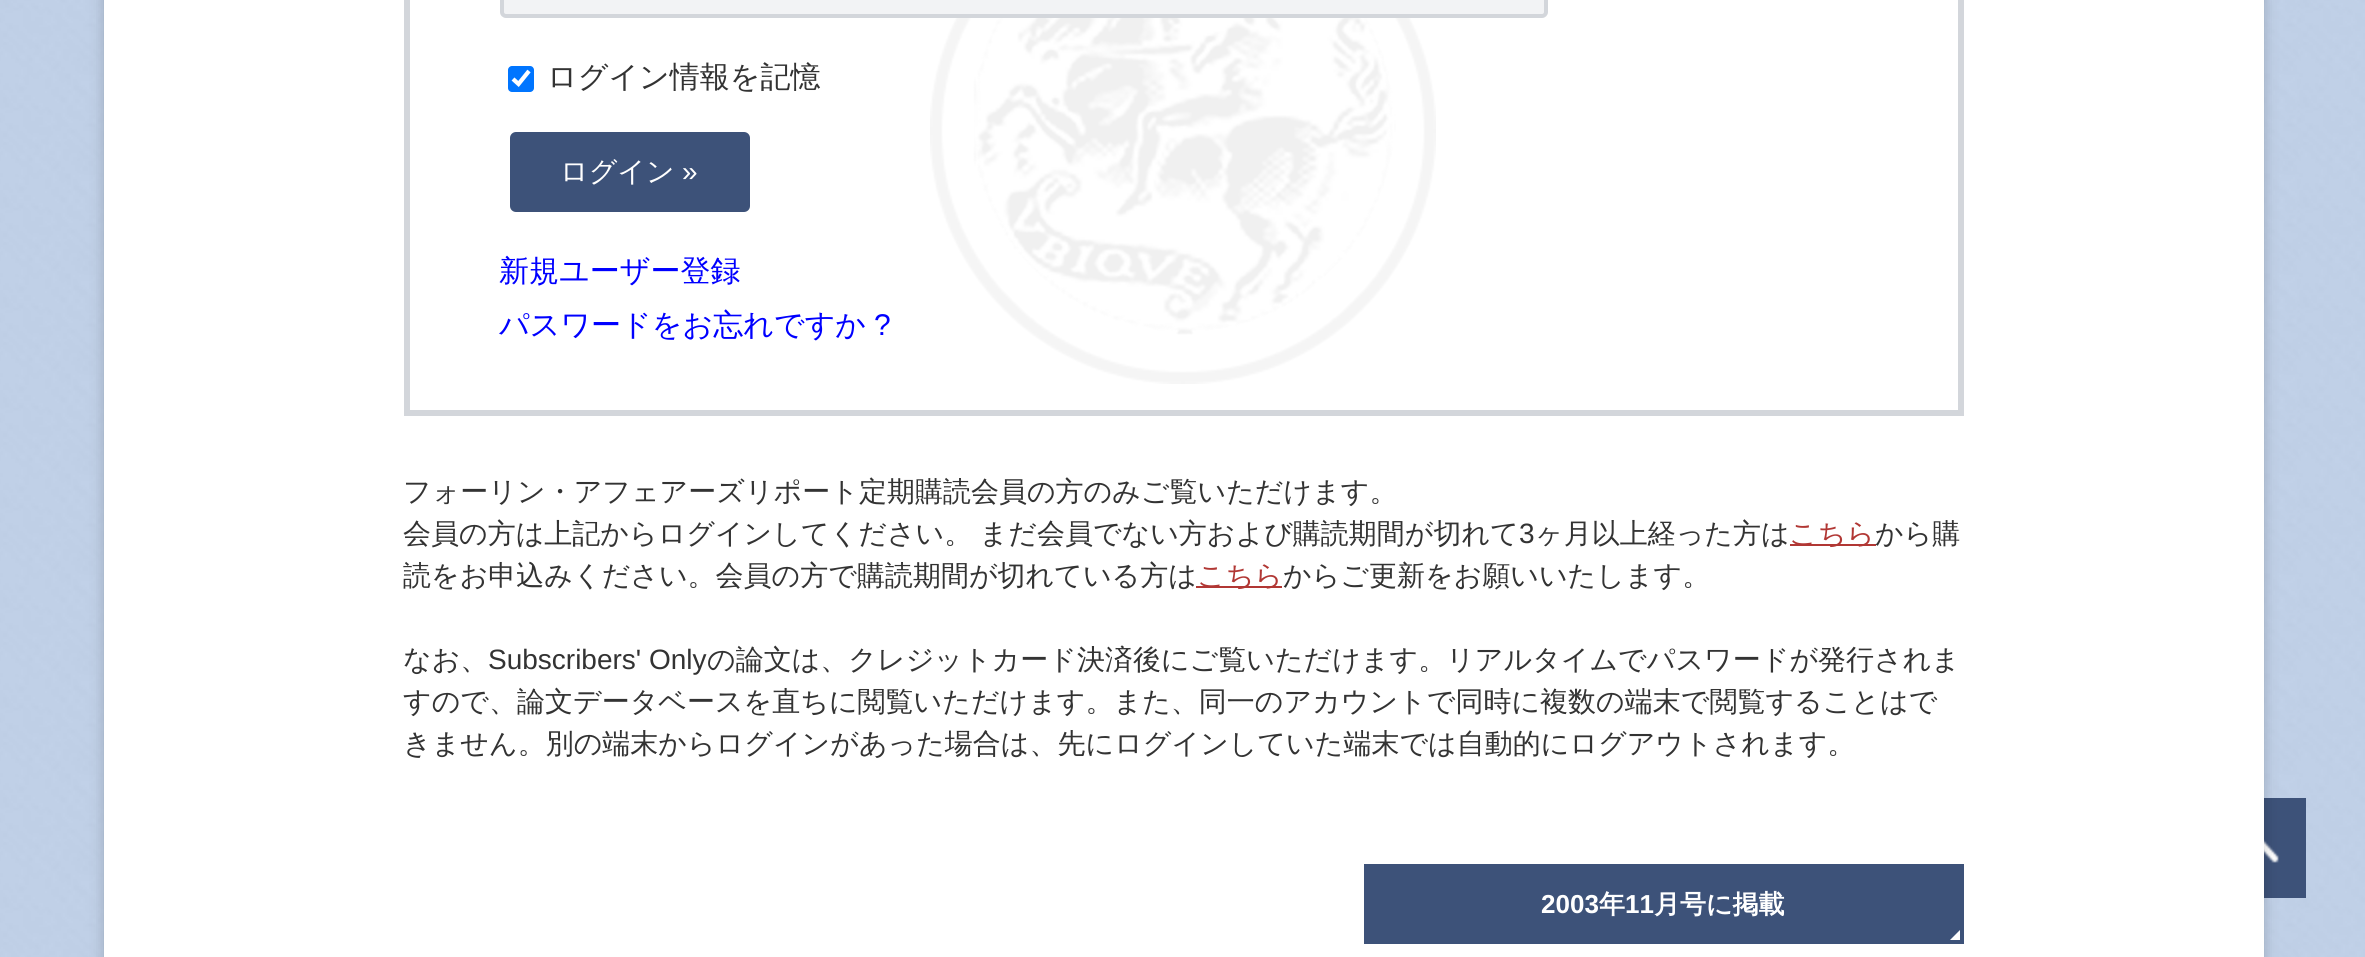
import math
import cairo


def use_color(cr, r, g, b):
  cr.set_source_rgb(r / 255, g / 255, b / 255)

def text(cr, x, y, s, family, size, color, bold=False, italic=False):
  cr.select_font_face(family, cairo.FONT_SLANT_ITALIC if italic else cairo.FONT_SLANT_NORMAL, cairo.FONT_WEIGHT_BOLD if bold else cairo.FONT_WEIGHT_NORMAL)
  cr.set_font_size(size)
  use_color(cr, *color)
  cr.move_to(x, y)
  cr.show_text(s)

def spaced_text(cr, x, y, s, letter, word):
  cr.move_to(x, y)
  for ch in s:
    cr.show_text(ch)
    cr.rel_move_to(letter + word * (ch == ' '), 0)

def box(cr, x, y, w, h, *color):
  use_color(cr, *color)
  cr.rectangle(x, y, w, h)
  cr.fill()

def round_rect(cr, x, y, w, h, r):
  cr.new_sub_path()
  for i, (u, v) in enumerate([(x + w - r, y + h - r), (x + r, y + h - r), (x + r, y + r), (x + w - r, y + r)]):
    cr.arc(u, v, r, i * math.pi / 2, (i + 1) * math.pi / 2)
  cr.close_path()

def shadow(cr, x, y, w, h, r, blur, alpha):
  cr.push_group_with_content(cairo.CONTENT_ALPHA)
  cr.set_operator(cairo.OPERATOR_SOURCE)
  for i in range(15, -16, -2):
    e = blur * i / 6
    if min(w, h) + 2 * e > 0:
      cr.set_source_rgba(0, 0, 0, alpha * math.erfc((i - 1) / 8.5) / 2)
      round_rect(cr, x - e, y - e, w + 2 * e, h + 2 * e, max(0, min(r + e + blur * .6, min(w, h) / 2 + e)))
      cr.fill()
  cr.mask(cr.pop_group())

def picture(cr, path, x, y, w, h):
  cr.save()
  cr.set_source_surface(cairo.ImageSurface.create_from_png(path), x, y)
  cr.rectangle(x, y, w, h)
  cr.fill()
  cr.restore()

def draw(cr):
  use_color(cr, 255, 255, 255)
  cr.paint()
  picture(cr, "img_01.png", 0, 0, 2365, 957)
  box(cr, 2264, 798, 42, 100, 61, 82, 121)
  picture(cr, "img_03.png", 2264, 839, 15, 24)
  use_color(cr, 0, 0, 0)
  shadow(cr, 104, -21, 2160, 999, 0, 7, 0.2)
  box(cr, 104, 0, 2160, 957, 255, 255, 255)
  picture(cr, "img_02.png", 930, 18, 506, 366)
  cr.rectangle(407, -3, 1554, 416)
  use_color(cr, 211, 214, 219)
  cr.set_line_width(6)
  cr.stroke()
  use_color(cr, 242, 243, 245)
  round_rect(cr, 502, -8, 1044, 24, 4)
  cr.fill_preserve()
  use_color(cr, 211, 214, 219)
  cr.set_line_width(4)
  cr.stroke()
  use_color(cr, 0, 117, 255)
  round_rect(cr, 508, 66, 26, 26, 4)
  cr.fill()
  cr.new_path()
  cr.move_to(513, 79)
  cr.line_to(518.5, 84)
  cr.line_to(529, 71)
  use_color(cr, 255, 255, 255)
  cr.set_line_width(4.2)
  cr.stroke()
  use_color(cr, 61, 82, 121)
  round_rect(cr, 510, 132, 240, 80, 6)
  cr.fill()
  box(cr, 1790, 544, 86, 2, 177, 55, 52)
  box(cr, 1196, 586, 86, 2, 177, 55, 52)
  box(cr, 1364, 864, 600, 80, 61, 82, 121)
  use_color(cr, 255, 255, 255)
  cr.new_path()
  cr.move_to(1960, 930)
  cr.line_to(1960, 940)
  cr.line_to(1950, 940)
  cr.close_path()
  cr.fill()
  text(cr, 547, 87, "ログイン情報を記憶", "WenQuanYi Zen Hei Medium", 30, (51, 51, 51))
  text(cr, 560, 181, "ログイン", "WenQuanYi Zen Hei Medium", 28, (255, 255, 255))
  text(cr, 682, 181, "»", "Liberation Sans", 28, (255, 255, 255))
  text(cr, 499, 281, "新規ユーザー登録", "WenQuanYi Zen Hei Medium", 30, (0, 0, 255))
  text(cr, 499, 335, "パスワードをお忘れですか", "WenQuanYi Zen Hei Medium", 30, (0, 0, 255))
  text(cr, 874, 335, "?", "Liberation Sans", 30, (0, 0, 255))
  text(cr, 403, 501, "フォーリン・アフェアーズリポート定期購読会員の方のみご覧いただけます。", "WenQuanYi Zen Hei Medium", 28, (51, 51, 51))
  spaced_text(cr, 403, 543, "会員の方は上記からログインしてください。 まだ会員でない方および購読期間が切れて", 0, -1)
  text(cr, 1519, 543, "3", "Liberation Sans", 28, (51, 51, 51))
  text(cr, 1535, 543, "ヶ月以上経った方は", "WenQuanYi Zen Hei Medium", 28, (51, 51, 51))
  text(cr, 1789, 543, "こちら", "WenQuanYi Zen Hei Medium", 28, (177, 55, 52))
  text(cr, 1875, 543, "から購", "WenQuanYi Zen Hei Medium", 28, (51, 51, 51))
  text(cr, 403, 585, "読をお申込みください。会員の方で購読期間が切れている方は", "WenQuanYi Zen Hei Medium", 28, (51, 51, 51))
  text(cr, 1197, 585, "こちら", "WenQuanYi Zen Hei Medium", 28, (177, 55, 52))
  text(cr, 1283, 585, "からご更新をお願いいたします。", "WenQuanYi Zen Hei Medium", 28, (51, 51, 51))
  text(cr, 403, 669, "なお、", "WenQuanYi Zen Hei Medium", 28, (51, 51, 51))
  text(cr, 488, 669, "Subscribers' Only", "Liberation Sans", 28, (51, 51, 51))
  text(cr, 707, 669, "の論文は、クレジットカード決済後にご覧いただけます。リアルタイムでパスワードが発行されま", "WenQuanYi Zen Hei Medium", 28, (51, 51, 51))
  text(cr, 403, 711, "すので、論文データベースを直ちに閲覧いただけます。また、同一のアカウントで同時に複数の端末で閲覧することはで", "WenQuanYi Zen Hei Medium", 28, (51, 51, 51))
  text(cr, 403, 753, "きません。別の端末からログインがあった場合は、先にログインしていた端末では自動的にログアウトされます。", "WenQuanYi Zen Hei Medium", 28, (51, 51, 51))
  text(cr, 1541, 913, "2003", "Liberation Sans", 26, (255, 255, 255), bold=True)
  text(cr, 1599, 913, "年", "WenQuanYi Zen Hei", 26, (255, 255, 255), bold=True)
  text(cr, 1625, 913, "11", "Liberation Sans", 26, (255, 255, 255), bold=True)
  text(cr, 1654, 913, "月号に掲載", "WenQuanYi Zen Hei", 26, (255, 255, 255), bold=True)


surface = cairo.ImageSurface(cairo.FORMAT_RGB24, 2365, 957)
cr = cairo.Context(surface)
options = cairo.FontOptions()
options.set_hint_metrics(cairo.HINT_METRICS_OFF)
options.set_hint_style(cairo.HINT_STYLE_NONE)
cr.set_font_options(options)
cr.set_miter_limit(4)
draw(cr)
surface.write_to_png("out.png")
